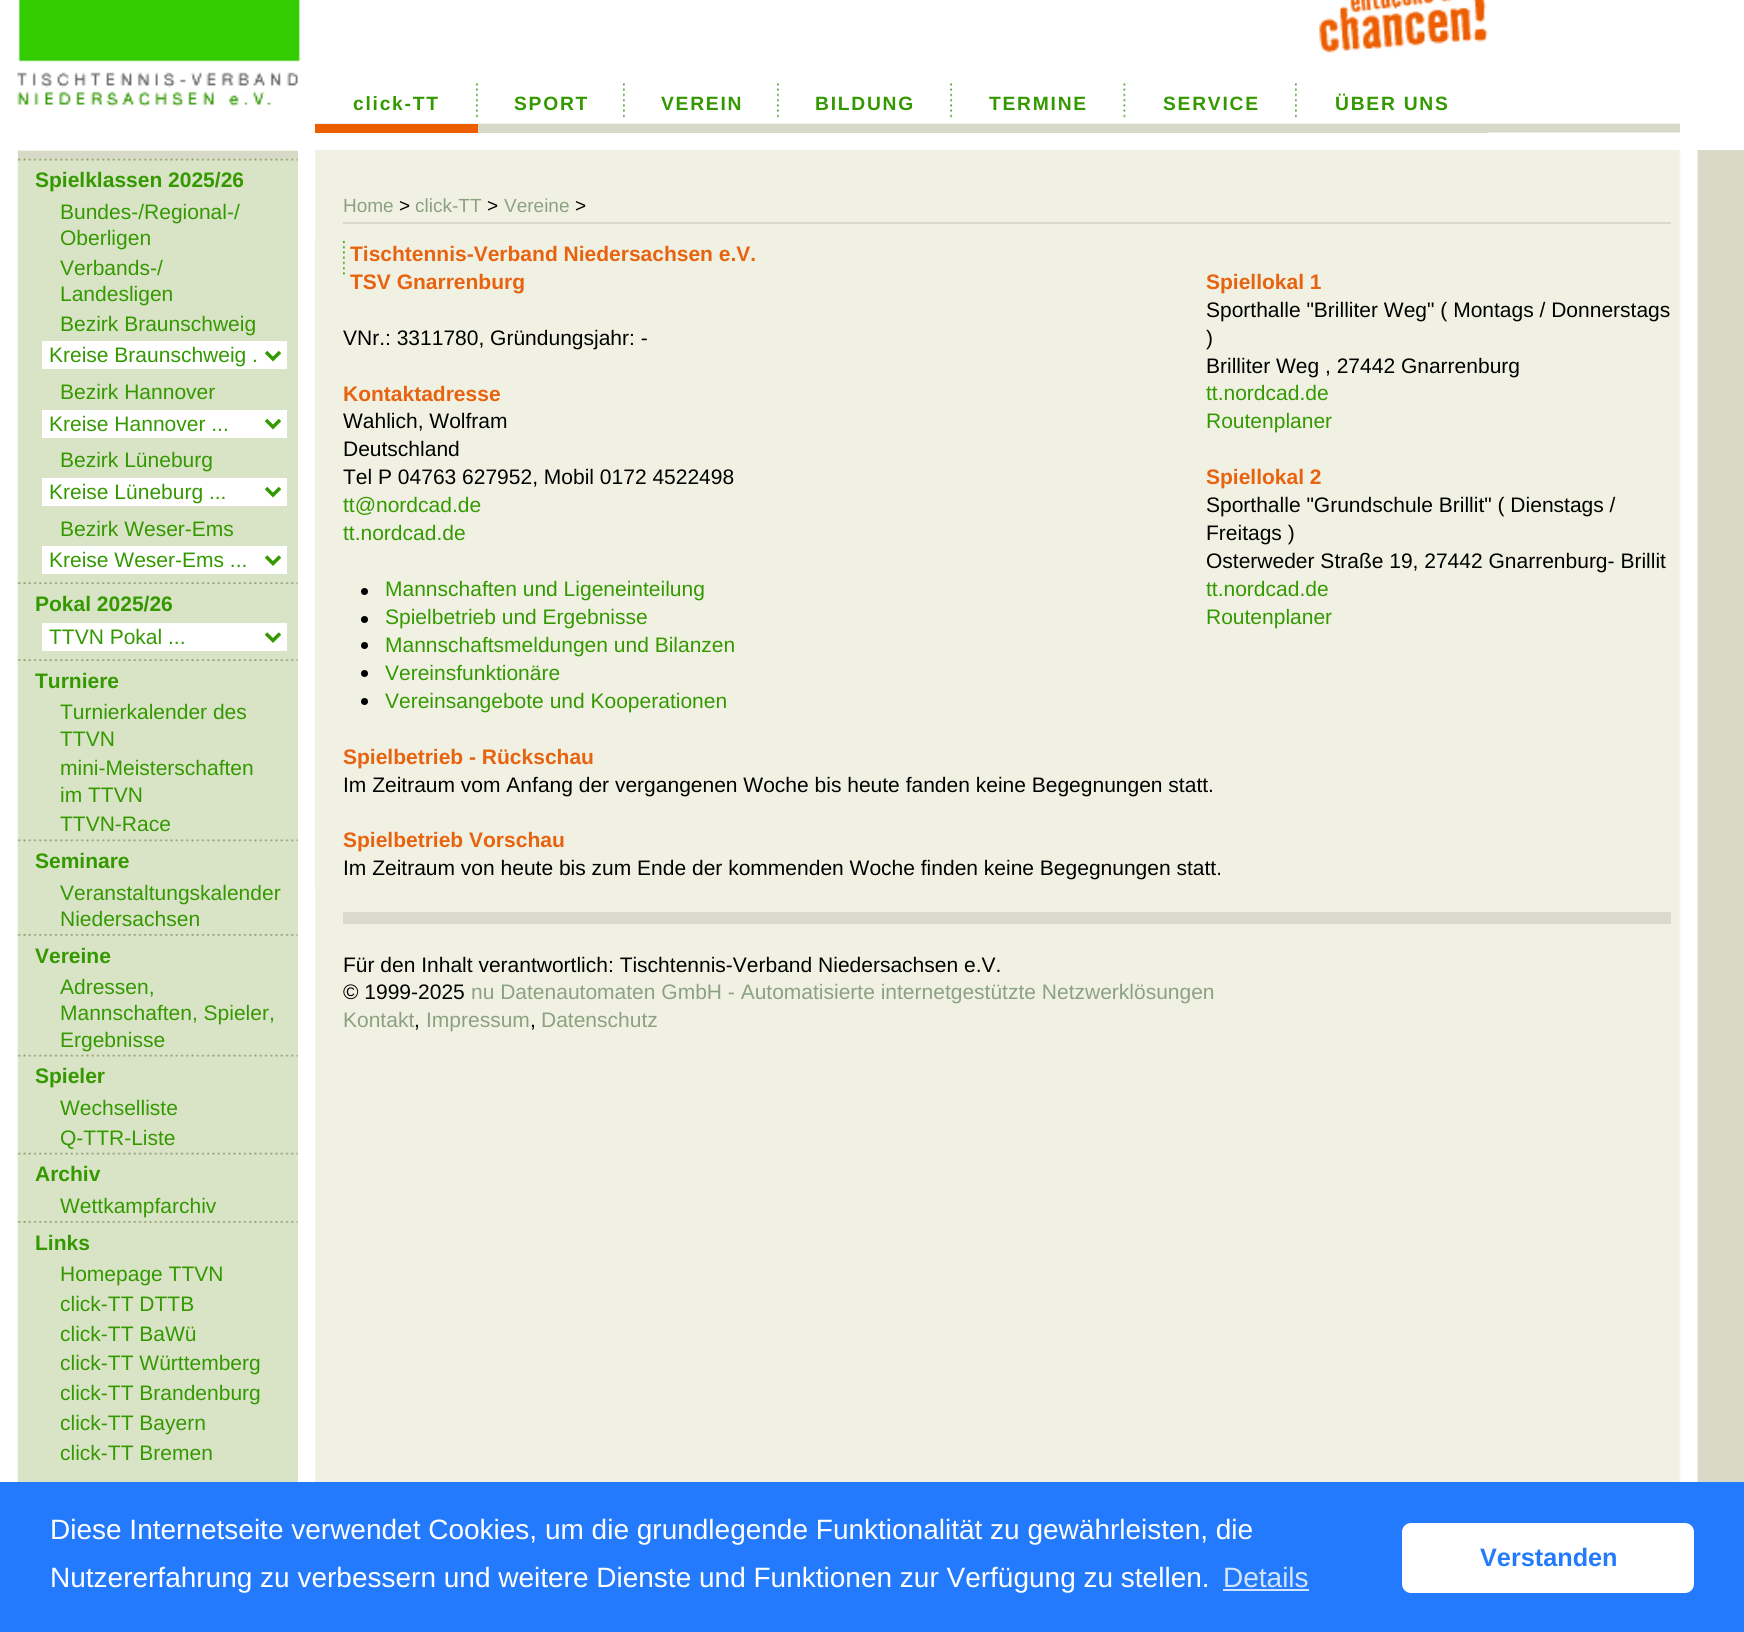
import math
import cairo


def use_color(cr, r, g, b):
  cr.set_source_rgb(r / 255, g / 255, b / 255)

def text(cr, x, y, s, family, size, color, bold=False, italic=False):
  cr.select_font_face(family, cairo.FONT_SLANT_ITALIC if italic else cairo.FONT_SLANT_NORMAL, cairo.FONT_WEIGHT_BOLD if bold else cairo.FONT_WEIGHT_NORMAL)
  cr.set_font_size(size)
  use_color(cr, *color)
  cr.move_to(x, y)
  cr.show_text(s)

def spaced_text(cr, x, y, s, letter, word):
  cr.move_to(x, y)
  for ch in s:
    cr.show_text(ch)
    cr.rel_move_to(letter + word * (ch == ' '), 0)

def box(cr, x, y, w, h, *color):
  use_color(cr, *color)
  cr.rectangle(x, y, w, h)
  cr.fill()

def round_rect(cr, x, y, w, h, r):
  cr.new_sub_path()
  for i, (u, v) in enumerate([(x + w - r, y + h - r), (x + r, y + h - r), (x + r, y + r), (x + w - r, y + r)]):
    cr.arc(u, v, r, i * math.pi / 2, (i + 1) * math.pi / 2)
  cr.close_path()

def picture(cr, path, x, y, w, h):
  cr.save()
  cr.set_source_surface(cairo.ImageSurface.create_from_png(path), x, y)
  cr.rectangle(x, y, w, h)
  cr.fill()
  cr.restore()

def draw(cr):
  use_color(cr, 255, 255, 255)
  cr.paint()
  picture(cr, "img_01.png", 17, 150, 1727, 1332)
  picture(cr, "img_02.png", 17, 0, 283, 107)
  picture(cr, "img_03.png", 1319, 0, 169, 53)
  picture(cr, "img_04.png", 315, 123, 1365, 10)
  picture(cr, "img_05.png", 476, 83, 2, 41)
  box(cr, 315, 124, 163, 9, 237, 94, 0)
  picture(cr, "img_05.png", 623, 83, 2, 41)
  box(cr, 478, 124, 1010, 9, 216, 217, 199)
  picture(cr, "img_05.png", 777, 83, 2, 41)
  picture(cr, "img_06.png", 950, 83, 2, 41)
  picture(cr, "img_07.png", 1123, 83, 3, 41)
  picture(cr, "img_05.png", 1295, 83, 2, 41)
  box(cr, 18, 151, 280, 8, 217, 217, 199)
  box(cr, 18, 159, 280, 1323, 217, 227, 197)
  picture(cr, "img_08.png", 17, 158, 281, 3)
  box(cr, 42, 341, 245, 28, 255, 255, 255)
  cr.new_path()
  cr.move_to(266, 352)
  cr.line_to(273, 359)
  cr.line_to(280, 352)
  use_color(cr, 52, 153, 1)
  cr.set_line_width(3.5)
  cr.stroke()
  box(cr, 42, 410, 245, 28, 255, 255, 255)
  cr.new_path()
  cr.move_to(266, 420)
  cr.line_to(273, 427)
  cr.line_to(280, 420)
  use_color(cr, 52, 153, 1)
  cr.stroke()
  box(cr, 42, 478, 245, 28, 255, 255, 255)
  cr.new_path()
  cr.move_to(266, 488)
  cr.line_to(273, 495)
  cr.line_to(280, 488)
  use_color(cr, 52, 153, 1)
  cr.stroke()
  box(cr, 42, 546, 245, 28, 255, 255, 255)
  cr.new_path()
  cr.move_to(266, 556.5)
  cr.line_to(273, 563.5)
  cr.line_to(280, 556.5)
  use_color(cr, 52, 153, 1)
  cr.stroke()
  picture(cr, "img_09.png", 17, 582, 281, 2)
  box(cr, 42, 623, 245, 28, 255, 255, 255)
  cr.new_path()
  cr.move_to(266, 633.5)
  cr.line_to(273, 640.5)
  cr.line_to(280, 633.5)
  use_color(cr, 52, 153, 1)
  cr.stroke()
  picture(cr, "img_09.png", 17, 659, 281, 2)
  picture(cr, "img_10.png", 17, 839, 281, 3)
  picture(cr, "img_11.png", 17, 934, 281, 2)
  picture(cr, "img_12.png", 17, 1054, 281, 3)
  picture(cr, "img_12.png", 17, 1152, 281, 3)
  picture(cr, "img_11.png", 17, 1221, 281, 2)
  box(cr, 315, 242, 1, 642, 241, 241, 227)
  picture(cr, "img_13.png", 343, 241, 2, 34)
  use_color(cr, 0, 0, 0)
  cr.arc(364.5, 591.5, 3.5, 0, 2 * math.pi)
  cr.fill()
  cr.arc(364.5, 619.5, 3.5, 0, 2 * math.pi)
  cr.fill()
  cr.arc(364.5, 645.5, 3.5, 0, 2 * math.pi)
  cr.fill()
  cr.arc(364.5, 673.5, 3.5, 0, 2 * math.pi)
  cr.fill()
  cr.arc(364.5, 701.5, 3.5, 0, 2 * math.pi)
  cr.fill()
  box(cr, 343, 222, 1328, 2, 217, 218, 204)
  box(cr, 343, 912, 1328, 12, 217, 218, 204)
  box(cr, 0, 1482, 1744, 150, 35, 122, 252)
  box(cr, 1223, 1589, 86, 2, 211, 228, 254)
  use_color(cr, 255, 255, 255)
  round_rect(cr, 1402, 1523, 292, 70, 9)
  cr.fill()
  cr.select_font_face("Liberation Sans", cairo.FONT_SLANT_NORMAL, cairo.FONT_WEIGHT_BOLD)
  cr.set_font_size(19.25)
  use_color(cr, 52, 153, 1)
  spaced_text(cr, 353, 110, "click-TT", 1.75, 0)
  spaced_text(cr, 514, 110, "SPORT", 1.75, 0)
  spaced_text(cr, 661, 110, "VEREIN", 1.75, 0)
  spaced_text(cr, 815, 110, "BILDUNG", 1.75, 0)
  spaced_text(cr, 989, 110, "TERMINE", 1.75, 0)
  spaced_text(cr, 1163, 110, "SERVICE", 1.75, 0)
  spaced_text(cr, 1335, 110, "ÜBER UNS", 1.75, 0)
  text(cr, 35, 187, "Spielklassen 2025/26", "Liberation Sans", 21, (52, 153, 1), bold=True)
  text(cr, 60, 219, "Bundes-/Regional-/", "Liberation Sans", 21, (52, 153, 1))
  text(cr, 60, 245, "Oberligen", "Liberation Sans", 21, (52, 153, 1))
  text(cr, 60, 275, "Verbands-/", "Liberation Sans", 21, (52, 153, 1))
  text(cr, 60, 301, "Landesligen", "Liberation Sans", 21, (52, 153, 1))
  text(cr, 60, 331, "Bezirk Braunschweig", "Liberation Sans", 21, (52, 153, 1))
  text(cr, 49, 362, "Kreise Braunschweig .", "Liberation Sans", 21, (52, 153, 1))
  text(cr, 60, 399, "Bezirk Hannover", "Liberation Sans", 21, (52, 153, 1))
  text(cr, 49, 431, "Kreise Hannover ...", "Liberation Sans", 21, (52, 153, 1))
  text(cr, 60, 467, "Bezirk Lüneburg", "Liberation Sans", 21, (52, 153, 1))
  text(cr, 49, 499, "Kreise Lüneburg ...", "Liberation Sans", 21, (52, 153, 1))
  text(cr, 60, 536, "Bezirk Weser-Ems", "Liberation Sans", 21, (52, 153, 1))
  text(cr, 49, 567, "Kreise Weser-Ems ...", "Liberation Sans", 21, (52, 153, 1))
  text(cr, 35, 611, "Pokal 2025/26", "Liberation Sans", 21, (52, 153, 1), bold=True)
  text(cr, 49, 644, "TTVN Pokal ...", "Liberation Sans", 21, (52, 153, 1))
  text(cr, 35, 688, "Turniere", "Liberation Sans", 21, (52, 153, 1), bold=True)
  text(cr, 60, 719, "Turnierkalender des", "Liberation Sans", 21, (52, 153, 1))
  text(cr, 60, 746, "TTVN", "Liberation Sans", 21, (52, 153, 1))
  text(cr, 60, 775, "mini-Meisterschaften", "Liberation Sans", 21, (52, 153, 1))
  text(cr, 60, 802, "im TTVN", "Liberation Sans", 21, (52, 153, 1))
  text(cr, 60, 831, "TTVN-Race", "Liberation Sans", 21, (52, 153, 1))
  text(cr, 35, 868, "Seminare", "Liberation Sans", 21, (52, 153, 1), bold=True)
  text(cr, 60, 900, "Veranstaltungskalender", "Liberation Sans", 21, (52, 153, 1))
  text(cr, 60, 926, "Niedersachsen", "Liberation Sans", 21, (52, 153, 1))
  text(cr, 35, 963, "Vereine", "Liberation Sans", 21, (52, 153, 1), bold=True)
  text(cr, 60, 994, "Adressen,", "Liberation Sans", 21, (52, 153, 1))
  text(cr, 60, 1020, "Mannschaften, Spieler,", "Liberation Sans", 21, (52, 153, 1))
  text(cr, 60, 1047, "Ergebnisse", "Liberation Sans", 21, (52, 153, 1))
  text(cr, 35, 1083, "Spieler", "Liberation Sans", 21, (52, 153, 1), bold=True)
  text(cr, 60, 1115, "Wechselliste", "Liberation Sans", 21, (52, 153, 1))
  text(cr, 60, 1145, "Q-TTR-Liste", "Liberation Sans", 21, (52, 153, 1))
  text(cr, 35, 1181, "Archiv", "Liberation Sans", 21, (52, 153, 1), bold=True)
  text(cr, 60, 1213, "Wettkampfarchiv", "Liberation Sans", 21, (52, 153, 1))
  text(cr, 35, 1250, "Links", "Liberation Sans", 21, (52, 153, 1), bold=True)
  text(cr, 60, 1281, "Homepage TTVN", "Liberation Sans", 21, (52, 153, 1))
  text(cr, 60, 1311, "click-TT DTTB", "Liberation Sans", 21, (52, 153, 1))
  text(cr, 60, 1341, "click-TT BaWü", "Liberation Sans", 21, (52, 153, 1))
  text(cr, 60, 1370, "click-TT Württemberg", "Liberation Sans", 21, (52, 153, 1))
  text(cr, 60, 1400, "click-TT Brandenburg", "Liberation Sans", 21, (52, 153, 1))
  text(cr, 60, 1430, "click-TT Bayern", "Liberation Sans", 21, (52, 153, 1))
  text(cr, 60, 1460, "click-TT Bremen", "Liberation Sans", 21, (52, 153, 1))
  text(cr, 350, 261, "Tischtennis-Verband Niedersachsen e.V.", "Liberation Sans", 21, (231, 99, 15), bold=True)
  text(cr, 350, 289, "TSV Gnarrenburg", "Liberation Sans", 21, (231, 99, 15), bold=True)
  text(cr, 343, 345, "VNr.: 3311780, Gründungsjahr: -", "Liberation Sans", 21, (0, 0, 0))
  text(cr, 343, 401, "Kontaktadresse", "Liberation Sans", 21, (231, 99, 15), bold=True)
  text(cr, 343, 428, "Wahlich, Wolfram", "Liberation Sans", 21, (0, 0, 0))
  text(cr, 343, 456, "Deutschland", "Liberation Sans", 21, (0, 0, 0))
  text(cr, 343, 484, "Tel P 04763 627952, Mobil 0172 4522498", "Liberation Sans", 21, (0, 0, 0))
  text(cr, 343, 512, "tt@nordcad.de", "Liberation Sans", 21, (52, 153, 1))
  text(cr, 343, 540, "tt.nordcad.de", "Liberation Sans", 21, (52, 153, 1))
  text(cr, 385, 596, "Mannschaften und Ligeneinteilung", "Liberation Sans", 21, (52, 153, 1))
  text(cr, 385, 624, "Spielbetrieb und Ergebnisse", "Liberation Sans", 21, (52, 153, 1))
  text(cr, 385, 652, "Mannschaftsmeldungen und Bilanzen", "Liberation Sans", 21, (52, 153, 1))
  text(cr, 385, 680, "Vereinsfunktionäre", "Liberation Sans", 21, (52, 153, 1))
  text(cr, 385, 708, "Vereinsangebote und Kooperationen", "Liberation Sans", 21, (52, 153, 1))
  text(cr, 1206, 289, "Spiellokal 1", "Liberation Sans", 21, (231, 99, 15), bold=True)
  text(cr, 1206, 317, "Sporthalle \"Brilliter Weg\" ( Montags / Donnerstags", "Liberation Sans", 21, (0, 0, 0))
  text(cr, 1206, 345, ")", "Liberation Sans", 21, (0, 0, 0))
  text(cr, 1206, 373, "Brilliter Weg , 27442 Gnarrenburg", "Liberation Sans", 21, (0, 0, 0))
  text(cr, 1206, 400, "tt.nordcad.de", "Liberation Sans", 21, (52, 153, 1))
  text(cr, 1206, 428, "Routenplaner", "Liberation Sans", 21, (52, 153, 1))
  text(cr, 1206, 484, "Spiellokal 2", "Liberation Sans", 21, (231, 99, 15), bold=True)
  text(cr, 1206, 512, "Sporthalle \"Grundschule Brillit\" ( Dienstags /", "Liberation Sans", 21, (0, 0, 0))
  text(cr, 1206, 540, "Freitags )", "Liberation Sans", 21, (0, 0, 0))
  text(cr, 1206, 568, "Osterweder Straße 19, 27442 Gnarrenburg- Brillit", "Liberation Sans", 21, (0, 0, 0))
  text(cr, 1206, 596, "tt.nordcad.de", "Liberation Sans", 21, (52, 153, 1))
  text(cr, 1206, 624, "Routenplaner", "Liberation Sans", 21, (52, 153, 1))
  text(cr, 343, 764, "Spielbetrieb - Rückschau", "Liberation Sans", 21, (231, 99, 15), bold=True)
  text(cr, 343, 792, "Im Zeitraum vom Anfang der vergangenen Woche bis heute fanden keine Begegnungen statt.", "Liberation Sans", 21, (0, 0, 0))
  text(cr, 343, 847, "Spielbetrieb Vorschau", "Liberation Sans", 21, (231, 99, 15), bold=True)
  text(cr, 343, 875, "Im Zeitraum von heute bis zum Ende der kommenden Woche finden keine Begegnungen statt.", "Liberation Sans", 21, (0, 0, 0))
  text(cr, 343, 212, "Home", "Liberation Sans", 19, (140, 161, 130))
  text(cr, 399, 212, ">", "Liberation Sans", 19, (0, 0, 0))
  text(cr, 415, 212, "click-TT", "Liberation Sans", 19, (140, 161, 130))
  text(cr, 487, 212, ">", "Liberation Sans", 19, (0, 0, 0))
  text(cr, 504, 212, "Vereine", "Liberation Sans", 19, (140, 161, 130))
  text(cr, 575, 212, ">", "Liberation Sans", 19, (0, 0, 0))
  text(cr, 343, 972, "Für den Inhalt verantwortlich: Tischtennis-Verband Niedersachsen e.V.", "Liberation Sans", 21, (0, 0, 0))
  text(cr, 343, 999, "© 1999-2025", "Liberation Sans", 21, (0, 0, 0))
  text(cr, 471, 999, "nu Datenautomaten GmbH - Automatisierte internetgestützte Netzwerklösungen", "Liberation Sans", 21, (140, 161, 130))
  text(cr, 343, 1027, "Kontakt", "Liberation Sans", 21, (140, 161, 130))
  text(cr, 414, 1027, ",", "Liberation Sans", 21, (0, 0, 0))
  text(cr, 426, 1027, "Impressum", "Liberation Sans", 21, (140, 161, 130))
  text(cr, 530, 1027, ",", "Liberation Sans", 21, (0, 0, 0))
  text(cr, 541, 1027, "Datenschutz", "Liberation Sans", 21, (140, 161, 130))
  text(cr, 50, 1539, "Diese Internetseite verwendet Cookies, um die grundlegende Funktionalität zu gewährleisten, die", "Liberation Sans", 28, (255, 255, 255))
  text(cr, 50, 1587, "Nutzererfahrung zu verbessern und weitere Dienste und Funktionen zur Verfügung zu stellen.", "Liberation Sans", 28, (255, 255, 255))
  text(cr, 1223, 1587, "Details", "Liberation Sans", 28, (211, 228, 254))
  text(cr, 1480, 1566, "Verstanden", "Liberation Sans", 25.25, (35, 122, 252), bold=True)


surface = cairo.ImageSurface(cairo.FORMAT_RGB24, 1744, 1632)
cr = cairo.Context(surface)
options = cairo.FontOptions()
options.set_hint_metrics(cairo.HINT_METRICS_OFF)
options.set_hint_style(cairo.HINT_STYLE_NONE)
cr.set_font_options(options)
cr.set_miter_limit(4)
draw(cr)
surface.write_to_png("out.png")
